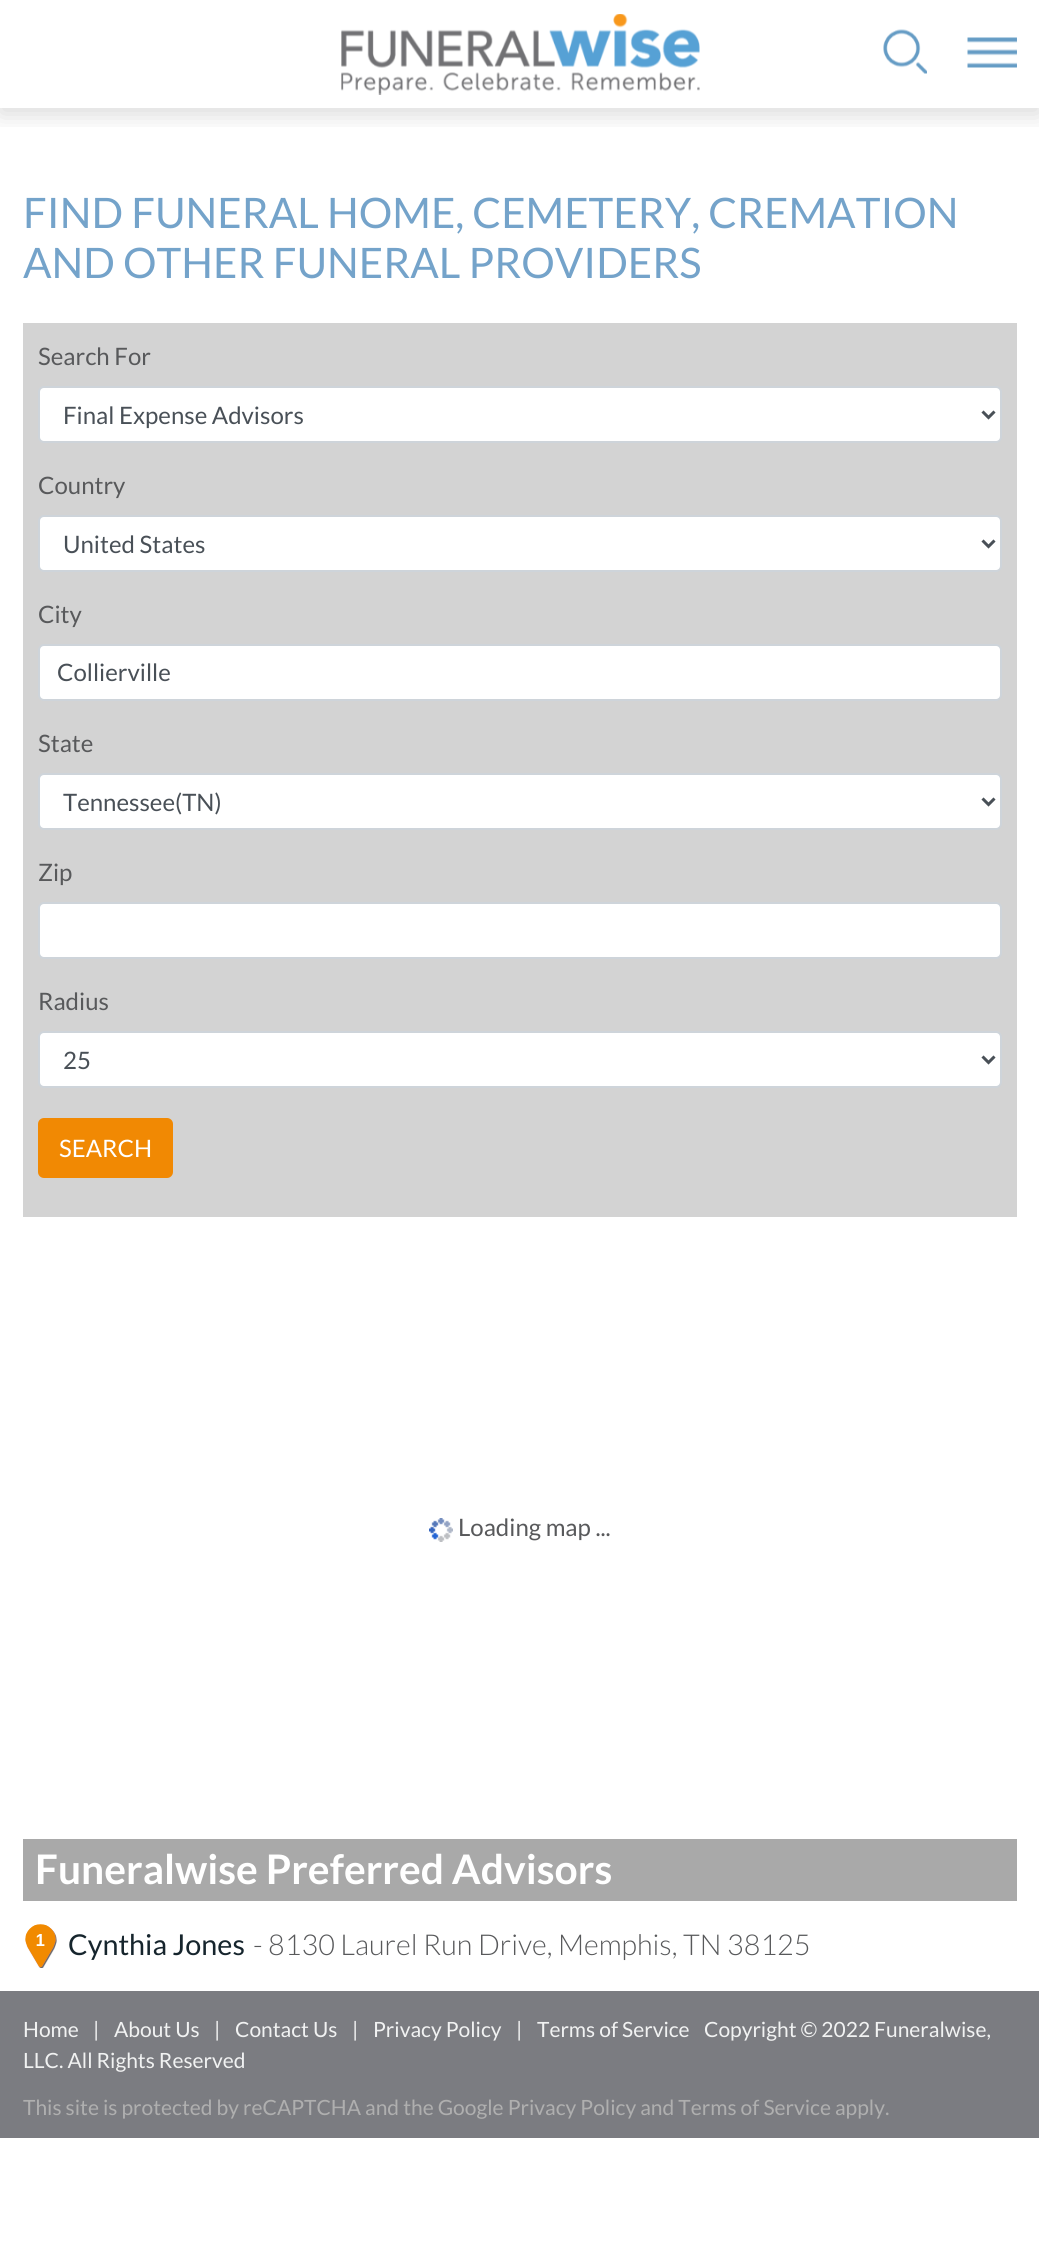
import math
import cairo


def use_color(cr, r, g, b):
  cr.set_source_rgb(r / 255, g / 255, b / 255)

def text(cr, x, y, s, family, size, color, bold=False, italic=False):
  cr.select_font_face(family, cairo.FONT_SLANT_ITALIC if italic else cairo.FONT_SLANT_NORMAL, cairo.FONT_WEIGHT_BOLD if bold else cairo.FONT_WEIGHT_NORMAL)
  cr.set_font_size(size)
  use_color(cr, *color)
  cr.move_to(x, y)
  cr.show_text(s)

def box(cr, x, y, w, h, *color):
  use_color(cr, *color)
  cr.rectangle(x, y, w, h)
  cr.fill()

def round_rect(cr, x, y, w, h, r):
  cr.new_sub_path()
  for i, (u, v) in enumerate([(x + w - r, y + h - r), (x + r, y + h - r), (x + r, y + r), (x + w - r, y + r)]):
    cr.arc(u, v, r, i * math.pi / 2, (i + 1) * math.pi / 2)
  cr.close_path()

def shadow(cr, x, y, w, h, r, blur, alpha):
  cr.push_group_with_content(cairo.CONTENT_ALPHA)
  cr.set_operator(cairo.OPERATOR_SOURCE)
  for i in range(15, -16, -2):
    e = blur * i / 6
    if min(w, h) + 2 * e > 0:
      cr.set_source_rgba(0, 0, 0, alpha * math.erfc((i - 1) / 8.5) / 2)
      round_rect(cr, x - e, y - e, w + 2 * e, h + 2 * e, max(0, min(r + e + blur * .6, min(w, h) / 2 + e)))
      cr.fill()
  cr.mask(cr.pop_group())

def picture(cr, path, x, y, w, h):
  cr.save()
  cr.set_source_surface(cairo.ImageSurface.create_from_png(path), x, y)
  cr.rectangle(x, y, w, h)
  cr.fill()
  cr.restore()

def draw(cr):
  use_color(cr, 255, 255, 255)
  cr.paint()
  cr.save()
  cr.rectangle(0, 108, 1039, 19)
  cr.clip()
  use_color(cr, 0, 0, 0)
  shadow(cr, 0, 6, 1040, 108, 0, 12, 0.15)
  cr.restore()
  picture(cr, "img_01.png", 341, 14, 359, 81)
  picture(cr, "img_02.png", 883, 29, 44, 45)
  picture(cr, "img_03.png", 967, 37, 50, 31)
  box(cr, 23, 323, 994, 894, 211, 211, 211)
  use_color(cr, 255, 255, 255)
  round_rect(cr, 39, 387, 962, 55, 5)
  cr.fill_preserve()
  use_color(cr, 206, 212, 218)
  cr.stroke()
  cr.new_path()
  cr.move_to(982.5, 411.5)
  cr.line_to(988.5, 417.5)
  cr.line_to(994.5, 411.5)
  use_color(cr, 73, 80, 87)
  cr.set_line_width(3)
  cr.stroke()
  use_color(cr, 255, 255, 255)
  round_rect(cr, 39, 516, 962, 55, 5)
  cr.fill_preserve()
  use_color(cr, 206, 212, 218)
  cr.set_line_width(2)
  cr.stroke()
  cr.new_path()
  cr.move_to(982.5, 540.5)
  cr.line_to(988.5, 546.5)
  cr.line_to(994.5, 540.5)
  use_color(cr, 73, 80, 87)
  cr.set_line_width(3)
  cr.stroke()
  use_color(cr, 255, 255, 255)
  round_rect(cr, 39, 645, 962, 55, 5)
  cr.fill_preserve()
  use_color(cr, 206, 212, 218)
  cr.set_line_width(2)
  cr.stroke()
  use_color(cr, 255, 255, 255)
  round_rect(cr, 39, 774, 962, 55, 5)
  cr.fill_preserve()
  use_color(cr, 206, 212, 218)
  cr.stroke()
  cr.new_path()
  cr.move_to(982.5, 798.5)
  cr.line_to(988.5, 804.5)
  cr.line_to(994.5, 798.5)
  use_color(cr, 73, 80, 87)
  cr.set_line_width(3)
  cr.stroke()
  use_color(cr, 255, 255, 255)
  round_rect(cr, 39, 903, 962, 55, 5)
  cr.fill_preserve()
  use_color(cr, 206, 212, 218)
  cr.set_line_width(2)
  cr.stroke()
  use_color(cr, 255, 255, 255)
  round_rect(cr, 39, 1032, 962, 55, 5)
  cr.fill_preserve()
  use_color(cr, 206, 212, 218)
  cr.stroke()
  cr.new_path()
  cr.move_to(982.5, 1056.5)
  cr.line_to(988.5, 1062.5)
  cr.line_to(994.5, 1056.5)
  use_color(cr, 73, 80, 87)
  cr.set_line_width(3)
  cr.stroke()
  use_color(cr, 241, 137, 3)
  round_rect(cr, 39.5, 1119.5, 132, 57, 4.5)
  cr.fill_preserve()
  cr.stroke()
  picture(cr, "img_04.png", 429, 1518, 24, 24)
  box(cr, 23, 1839, 994, 62, 169, 169, 169)
  picture(cr, "img_05.png", 25, 1924, 32, 44)
  box(cr, 0, 1991, 1039, 147, 123, 124, 129)
  text(cr, 23, 228, "FIND FUNERAL HOME, CEMETERY, CREMATION", "Lato", 42, (116, 163, 202))
  text(cr, 23, 278, "AND OTHER FUNERAL PROVIDERS", "Lato", 42, (116, 163, 202))
  text(cr, 38, 365, "Search For", "Lato", 24, (88, 89, 91))
  text(cr, 63, 424, "Final Expense Advisors", "Lato", 24, (73, 80, 87))
  text(cr, 38, 494, "Country", "Lato", 24, (88, 89, 91))
  text(cr, 63, 553, "United States", "Lato", 24, (73, 80, 87))
  text(cr, 38, 623, "City", "Lato", 24, (88, 89, 91))
  text(cr, 57, 681, "Collierville", "Lato", 24, (73, 80, 87))
  text(cr, 38, 752, "State", "Lato", 24, (88, 89, 91))
  text(cr, 63, 811, "Tennessee(TN)", "Lato", 24, (73, 80, 87))
  text(cr, 38, 881, "Zip", "Lato", 24, (88, 89, 91))
  text(cr, 38, 1010, "Radius", "Lato", 24, (88, 89, 91))
  text(cr, 63, 1069, "25", "Lato", 24, (73, 80, 87))
  text(cr, 59, 1157, "SEARCH", "Lato", 24, (255, 255, 255))
  text(cr, 458, 1536, "Loading map ...", "Lato", 24, (88, 89, 91))
  text(cr, 35, 1884, "Funeralwise Preferred Advisors", "Lato", 40.75, (255, 255, 255), bold=True)
  text(cr, 68, 1955, "Cynthia Jones", "Lato", 28.75, (22, 37, 45))
  text(cr, 253, 1955, "- 8130 Laurel Run Drive, Memphis, TN 38125", "Lato Light", 28.75, (88, 89, 91))
  text(cr, 23, 2037, "Home", "Lato", 21, (241, 242, 242))
  text(cr, 93, 2037, "|", "Lato", 21, (241, 242, 242))
  text(cr, 114, 2037, "About Us", "Lato", 21, (241, 242, 242))
  text(cr, 214, 2037, "|", "Lato", 21, (241, 242, 242))
  text(cr, 235, 2037, "Contact Us", "Lato", 21, (241, 242, 242))
  text(cr, 352, 2037, "|", "Lato", 21, (241, 242, 242))
  text(cr, 373, 2037, "Privacy Policy", "Lato", 21, (241, 242, 242))
  text(cr, 516, 2037, "|", "Lato", 21, (241, 242, 242))
  text(cr, 537, 2037, "Terms of Service", "Lato", 21, (241, 242, 242))
  text(cr, 704, 2037, "Copyright © 2022 Funeralwise,", "Lato", 21, (241, 242, 242))
  text(cr, 23, 2068, "LLC. All Rights Reserved", "Lato", 21, (241, 242, 242))
  text(cr, 23, 2115, "This site is protected by reCAPTCHA and the Google Privacy Policy and Terms of Service apply.", "Lato", 21, (175, 175, 175))


surface = cairo.ImageSurface(cairo.FORMAT_RGB24, 1039, 2249)
cr = cairo.Context(surface)
options = cairo.FontOptions()
options.set_hint_metrics(cairo.HINT_METRICS_OFF)
options.set_hint_style(cairo.HINT_STYLE_NONE)
cr.set_font_options(options)
cr.set_miter_limit(4)
draw(cr)
surface.write_to_png("out.png")
